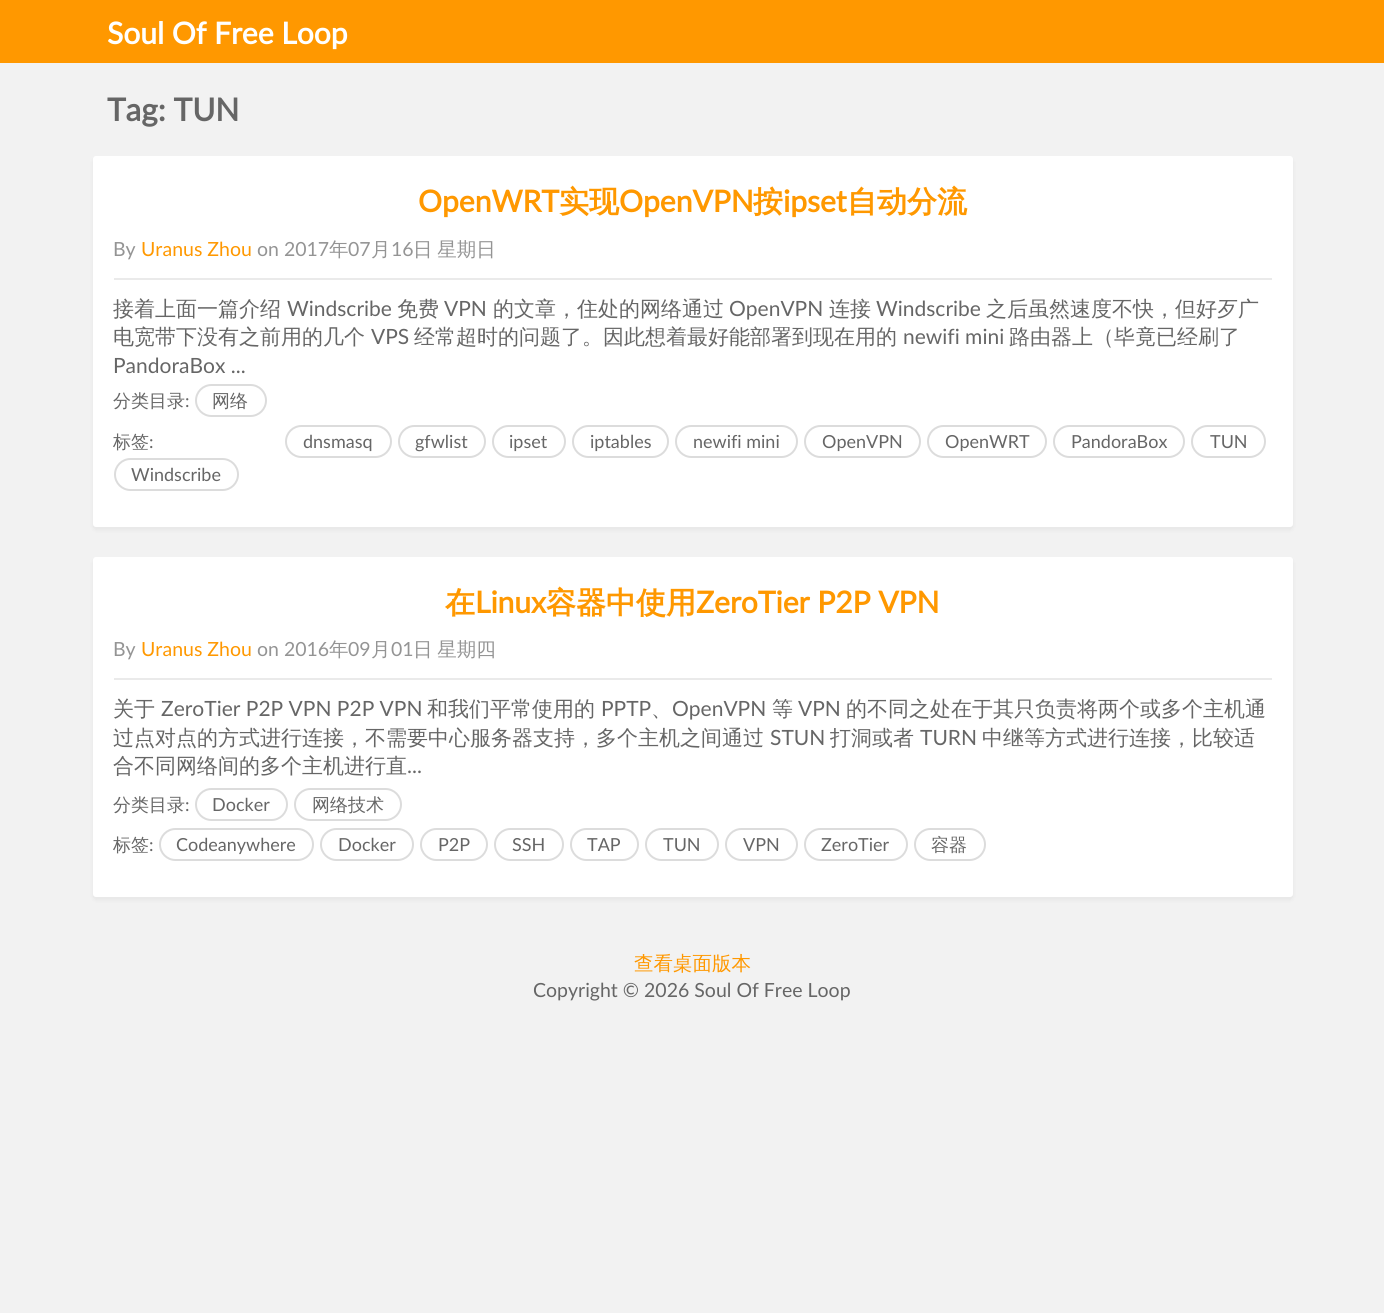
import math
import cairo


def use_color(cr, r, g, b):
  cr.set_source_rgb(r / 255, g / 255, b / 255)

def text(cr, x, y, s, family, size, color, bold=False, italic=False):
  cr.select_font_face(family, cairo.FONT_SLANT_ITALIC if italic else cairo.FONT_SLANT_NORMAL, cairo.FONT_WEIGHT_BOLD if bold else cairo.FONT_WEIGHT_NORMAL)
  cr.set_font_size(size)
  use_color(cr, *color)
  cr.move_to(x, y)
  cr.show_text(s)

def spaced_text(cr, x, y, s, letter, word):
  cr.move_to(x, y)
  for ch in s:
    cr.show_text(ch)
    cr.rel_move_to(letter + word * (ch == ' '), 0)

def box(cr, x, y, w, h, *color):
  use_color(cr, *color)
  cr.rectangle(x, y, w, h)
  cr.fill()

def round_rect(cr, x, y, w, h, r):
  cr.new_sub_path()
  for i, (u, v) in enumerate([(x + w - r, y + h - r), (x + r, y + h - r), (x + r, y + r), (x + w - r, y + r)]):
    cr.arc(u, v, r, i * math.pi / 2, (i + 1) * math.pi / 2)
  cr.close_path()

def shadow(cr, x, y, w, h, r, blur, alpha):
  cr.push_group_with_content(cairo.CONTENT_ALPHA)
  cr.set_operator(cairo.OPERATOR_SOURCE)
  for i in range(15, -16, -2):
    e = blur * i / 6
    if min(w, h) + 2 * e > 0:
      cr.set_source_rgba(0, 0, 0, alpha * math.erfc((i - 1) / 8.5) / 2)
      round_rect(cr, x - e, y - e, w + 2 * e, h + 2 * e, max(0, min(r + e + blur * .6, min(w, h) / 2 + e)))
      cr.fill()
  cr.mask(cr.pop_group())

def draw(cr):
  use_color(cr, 242, 242, 242)
  cr.paint()
  box(cr, 0, 0, 1384, 63, 255, 152, 0)
  use_color(cr, 0, 0, 0)
  shadow(cr, 93, 159, 1200, 371, 3, 2, 0.05)
  use_color(cr, 255, 255, 255)
  round_rect(cr, 93, 156, 1200, 371, 3)
  cr.fill()
  box(cr, 114, 278, 1158, 2, 234, 234, 234)
  round_rect(cr, 196, 385, 70, 31, 15.5)
  use_color(cr, 220, 220, 220)
  cr.stroke()
  round_rect(cr, 286, 426, 105, 31, 15.5)
  cr.stroke()
  round_rect(cr, 399, 426, 86, 31, 15.5)
  cr.stroke()
  round_rect(cr, 493, 426, 72, 31, 15.5)
  cr.stroke()
  round_rect(cr, 573, 426, 95, 31, 15.5)
  cr.stroke()
  round_rect(cr, 676, 426, 121, 31, 15.5)
  cr.stroke()
  round_rect(cr, 805, 426, 115, 31, 15.5)
  cr.stroke()
  round_rect(cr, 928, 426, 118, 31, 15.5)
  cr.stroke()
  round_rect(cr, 1054, 426, 130, 31, 15.5)
  cr.stroke()
  round_rect(cr, 1192, 426, 73, 31, 15.5)
  cr.stroke()
  round_rect(cr, 115, 459, 123, 31, 15.5)
  cr.stroke()
  use_color(cr, 0, 0, 0)
  shadow(cr, 93, 560, 1200, 340, 3, 2, 0.05)
  use_color(cr, 255, 255, 255)
  round_rect(cr, 93, 557, 1200, 340, 3)
  cr.fill()
  box(cr, 114, 678, 1158, 2, 234, 234, 234)
  round_rect(cr, 196, 789, 91, 31, 15.5)
  use_color(cr, 220, 220, 220)
  cr.stroke()
  round_rect(cr, 295, 789, 106, 31, 15.5)
  cr.stroke()
  round_rect(cr, 160, 829, 153, 31, 15.5)
  cr.stroke()
  round_rect(cr, 321, 829, 92, 31, 15.5)
  cr.stroke()
  round_rect(cr, 421, 829, 66, 31, 15.5)
  cr.stroke()
  round_rect(cr, 495, 829, 68, 31, 15.5)
  cr.stroke()
  round_rect(cr, 571, 829, 67, 31, 15.5)
  cr.stroke()
  round_rect(cr, 646, 829, 72, 31, 15.5)
  cr.stroke()
  round_rect(cr, 726, 829, 71, 31, 15.5)
  cr.stroke()
  round_rect(cr, 805, 829, 102, 31, 15.5)
  cr.stroke()
  round_rect(cr, 915, 829, 70, 31, 15.5)
  cr.stroke()
  text(cr, 107, 44, "Soul Of Free Loop", "Lato", 30, (255, 255, 255), bold=True)
  text(cr, 107, 121, "Tag: TUN", "Lato", 31.5, (102, 102, 102), bold=True)
  text(cr, 418, 212, "OpenWRT", "Lato", 30, (255, 152, 0), bold=True)
  text(cr, 559, 212, "实现", "WenQuanYi Zen Hei", 30, (255, 152, 0), bold=True)
  text(cr, 619, 212, "OpenVPN", "Lato", 30, (255, 152, 0), bold=True)
  text(cr, 753, 212, "按", "WenQuanYi Zen Hei", 30, (255, 152, 0), bold=True)
  text(cr, 783, 212, "ipset", "Lato", 30, (255, 152, 0), bold=True)
  text(cr, 847, 212, "自动分流", "WenQuanYi Zen Hei", 30, (255, 152, 0), bold=True)
  text(cr, 113, 256, "By", "Lato", 19.5, (148, 148, 148))
  text(cr, 141, 256, "Uranus Zhou", "Lato", 19.5, (255, 152, 0))
  text(cr, 257, 256, "on 2017", "Lato", 19.5, (148, 148, 148))
  text(cr, 329, 256, "年", "WenQuanYi Zen Hei Medium", 19.5, (148, 148, 148))
  text(cr, 348, 256, "07", "Lato", 19.5, (148, 148, 148))
  text(cr, 371, 256, "月", "WenQuanYi Zen Hei Medium", 19.5, (148, 148, 148))
  text(cr, 391, 256, "16", "Lato", 19.5, (148, 148, 148))
  cr.select_font_face("WenQuanYi Zen Hei Medium")
  spaced_text(cr, 413, 256, "日 星期日", 0, -1)
  text(cr, 113, 316, "接着上面一篇介绍", "WenQuanYi Zen Hei Medium", 21, (102, 102, 102))
  text(cr, 287, 316, "Windscribe", "Lato", 21, (102, 102, 102))
  text(cr, 397, 316, "免费", "WenQuanYi Zen Hei Medium", 21, (102, 102, 102))
  text(cr, 444, 316, "VPN", "Lato", 21, (102, 102, 102))
  text(cr, 493, 316, "的文章，住处的网络通过", "WenQuanYi Zen Hei Medium", 21, (102, 102, 102))
  text(cr, 729, 316, "OpenVPN", "Lato", 21, (102, 102, 102))
  text(cr, 829, 316, "连接", "WenQuanYi Zen Hei Medium", 21, (102, 102, 102))
  text(cr, 876, 316, "Windscribe", "Lato", 21, (102, 102, 102))
  text(cr, 986, 316, "之后虽然速度不快，但好歹广", "WenQuanYi Zen Hei Medium", 21, (102, 102, 102))
  text(cr, 113, 344, "电宽带下没有之前用的几个", "WenQuanYi Zen Hei Medium", 21, (102, 102, 102))
  text(cr, 371, 344, "VPS", "Lato", 21, (102, 102, 102))
  text(cr, 414, 344, "经常超时的问题了。因此想着最好能部署到现在用的", "WenQuanYi Zen Hei Medium", 21, (102, 102, 102))
  text(cr, 903, 344, "newifi mini", "Lato", 21, (102, 102, 102))
  text(cr, 1009, 344, "路由器上（毕竟已经刷了", "WenQuanYi Zen Hei Medium", 21, (102, 102, 102))
  text(cr, 113, 373, "PandoraBox ...", "Lato", 21, (102, 102, 102))
  text(cr, 113, 407, "分类目录", "WenQuanYi Zen Hei Medium", 18, (102, 102, 102))
  text(cr, 185, 407, ":", "Lato", 18, (102, 102, 102))
  text(cr, 212, 407, "网络", "WenQuanYi Zen Hei Medium", 18, (102, 102, 102))
  text(cr, 113, 448, "标签", "WenQuanYi Zen Hei Medium", 18, (102, 102, 102))
  text(cr, 149, 448, ":", "Lato", 18, (102, 102, 102))
  text(cr, 303, 448, "dnsmasq", "Lato", 18, (102, 102, 102))
  text(cr, 415, 448, "gfwlist", "Lato", 18, (102, 102, 102))
  text(cr, 509, 448, "ipset", "Lato", 18, (102, 102, 102))
  text(cr, 590, 448, "iptables", "Lato", 18, (102, 102, 102))
  text(cr, 693, 448, "newifi mini", "Lato", 18, (102, 102, 102))
  text(cr, 822, 448, "OpenVPN", "Lato", 18, (102, 102, 102))
  text(cr, 945, 448, "OpenWRT", "Lato", 18, (102, 102, 102))
  text(cr, 1071, 448, "PandoraBox", "Lato", 18, (102, 102, 102))
  text(cr, 1210, 448, "TUN", "Lato", 18, (102, 102, 102))
  text(cr, 131, 481, "Windscribe", "Lato", 18, (102, 102, 102))
  text(cr, 445, 613, "在", "WenQuanYi Zen Hei", 30, (255, 152, 0), bold=True)
  text(cr, 475, 613, "Linux", "Lato", 30, (255, 152, 0), bold=True)
  text(cr, 546, 613, "容器中使用", "WenQuanYi Zen Hei", 30, (255, 152, 0), bold=True)
  text(cr, 696, 613, "ZeroTier P2P VPN", "Lato", 30, (255, 152, 0), bold=True)
  text(cr, 113, 656, "By", "Lato", 19.5, (148, 148, 148))
  text(cr, 141, 656, "Uranus Zhou", "Lato", 19.5, (255, 152, 0))
  text(cr, 257, 656, "on 2016", "Lato", 19.5, (148, 148, 148))
  text(cr, 329, 656, "年", "WenQuanYi Zen Hei Medium", 19.5, (148, 148, 148))
  text(cr, 348, 656, "09", "Lato", 19.5, (148, 148, 148))
  text(cr, 371, 656, "月", "WenQuanYi Zen Hei Medium", 19.5, (148, 148, 148))
  text(cr, 391, 656, "01", "Lato", 19.5, (148, 148, 148))
  cr.select_font_face("WenQuanYi Zen Hei Medium")
  spaced_text(cr, 413, 656, "日 星期四", 0, -1)
  text(cr, 113, 716, "关于", "WenQuanYi Zen Hei Medium", 21, (102, 102, 102))
  text(cr, 161, 716, "ZeroTier P2P VPN P2P VPN", "Lato", 21, (102, 102, 102))
  text(cr, 427, 716, "和我们平常使用的", "WenQuanYi Zen Hei Medium", 21, (102, 102, 102))
  text(cr, 601, 716, "PPTP", "Lato", 21, (102, 102, 102))
  text(cr, 672, 716, "OpenVPN", "Lato", 21, (102, 102, 102))
  text(cr, 772, 716, "等", "WenQuanYi Zen Hei Medium", 21, (102, 102, 102))
  text(cr, 798, 716, "VPN", "Lato", 21, (102, 102, 102))
  text(cr, 846, 716, "的不同之处在于其只负责将两个或多个主机通", "WenQuanYi Zen Hei Medium", 21, (102, 102, 102))
  text(cr, 651, 716, "、", "WenQuanYi Zen Hei Medium", 21, (102, 102, 102))
  text(cr, 113, 745, "过点对点的方式进行连接，不需要中心服务器支持，多个主机之间通过", "WenQuanYi Zen Hei Medium", 21, (102, 102, 102))
  text(cr, 770, 745, "STUN", "Lato", 21, (102, 102, 102))
  text(cr, 830, 745, "打洞或者", "WenQuanYi Zen Hei Medium", 21, (102, 102, 102))
  text(cr, 920, 745, "TURN", "Lato", 21, (102, 102, 102))
  text(cr, 982, 745, "中继等方式进行连接，比较适", "WenQuanYi Zen Hei Medium", 21, (102, 102, 102))
  text(cr, 113, 773, "合不同网络间的多个主机进行直", "WenQuanYi Zen Hei Medium", 21, (102, 102, 102))
  text(cr, 407, 773, "...", "Lato", 21, (102, 102, 102))
  text(cr, 113, 811, "分类目录", "WenQuanYi Zen Hei Medium", 18, (102, 102, 102))
  text(cr, 185, 811, ":", "Lato", 18, (102, 102, 102))
  text(cr, 212, 811, "Docker", "Lato", 18, (102, 102, 102))
  text(cr, 312, 811, "网络技术", "WenQuanYi Zen Hei Medium", 18, (102, 102, 102))
  text(cr, 113, 851, "标签", "WenQuanYi Zen Hei Medium", 18, (102, 102, 102))
  text(cr, 149, 851, ":", "Lato", 18, (102, 102, 102))
  text(cr, 176, 851, "Codeanywhere", "Lato", 18, (102, 102, 102))
  text(cr, 338, 851, "Docker", "Lato", 18, (102, 102, 102))
  text(cr, 438, 851, "P2P", "Lato", 18, (102, 102, 102))
  text(cr, 512, 851, "SSH", "Lato", 18, (102, 102, 102))
  text(cr, 587, 851, "TAP", "Lato", 18, (102, 102, 102))
  text(cr, 663, 851, "TUN", "Lato", 18, (102, 102, 102))
  text(cr, 743, 851, "VPN", "Lato", 18, (102, 102, 102))
  text(cr, 821, 851, "ZeroTier", "Lato", 18, (102, 102, 102))
  text(cr, 931, 851, "容器", "WenQuanYi Zen Hei Medium", 18, (102, 102, 102))
  text(cr, 634, 970, "查看桌面版本", "WenQuanYi Zen Hei Medium", 19.5, (255, 152, 0))
  text(cr, 533, 997, "Copyright © 2026 Soul Of Free Loop", "Lato", 19.5, (102, 102, 102))


surface = cairo.ImageSurface(cairo.FORMAT_RGB24, 1384, 1313)
cr = cairo.Context(surface)
options = cairo.FontOptions()
options.set_hint_metrics(cairo.HINT_METRICS_OFF)
options.set_hint_style(cairo.HINT_STYLE_NONE)
cr.set_font_options(options)
cr.set_miter_limit(4)
draw(cr)
surface.write_to_png("out.png")
